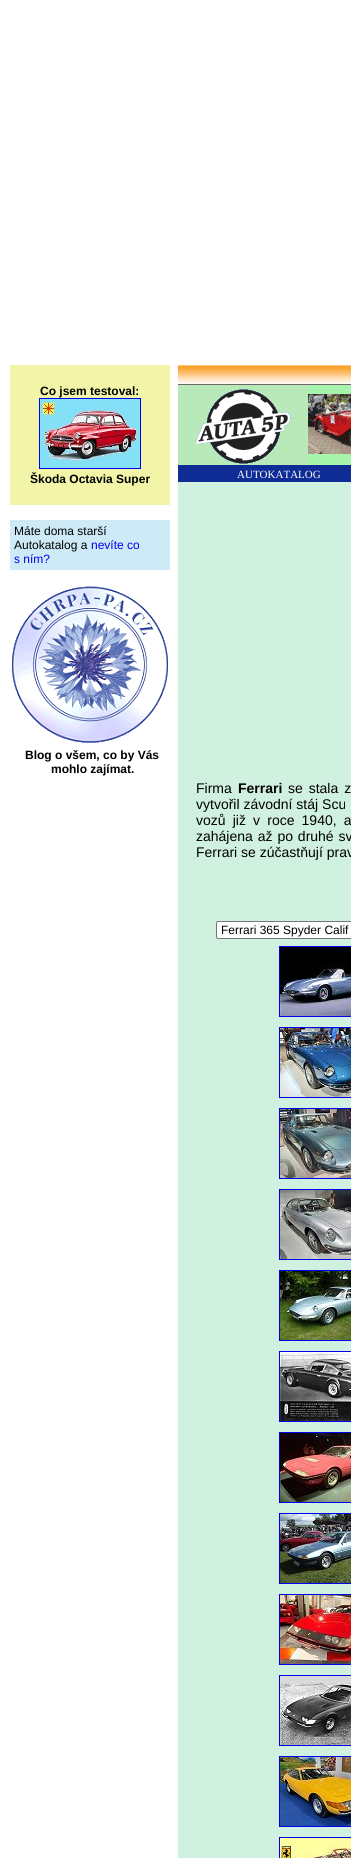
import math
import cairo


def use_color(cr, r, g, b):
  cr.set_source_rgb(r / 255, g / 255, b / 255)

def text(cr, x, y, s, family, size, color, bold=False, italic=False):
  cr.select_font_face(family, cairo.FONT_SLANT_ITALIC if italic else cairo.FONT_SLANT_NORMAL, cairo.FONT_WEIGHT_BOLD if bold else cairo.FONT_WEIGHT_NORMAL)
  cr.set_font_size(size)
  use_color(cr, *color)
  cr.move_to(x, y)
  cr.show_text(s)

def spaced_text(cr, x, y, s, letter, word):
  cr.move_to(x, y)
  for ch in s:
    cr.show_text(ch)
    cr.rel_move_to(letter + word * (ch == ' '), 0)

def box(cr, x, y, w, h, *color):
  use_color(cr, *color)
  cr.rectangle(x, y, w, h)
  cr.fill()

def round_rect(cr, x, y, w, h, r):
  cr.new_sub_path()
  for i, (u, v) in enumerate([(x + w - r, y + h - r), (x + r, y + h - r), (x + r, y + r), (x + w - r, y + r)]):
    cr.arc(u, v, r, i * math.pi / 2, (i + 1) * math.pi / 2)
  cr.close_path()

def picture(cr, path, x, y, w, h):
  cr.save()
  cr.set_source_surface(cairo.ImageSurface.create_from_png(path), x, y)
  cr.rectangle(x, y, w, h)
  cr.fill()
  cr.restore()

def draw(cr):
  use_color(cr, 255, 255, 255)
  cr.paint()
  box(cr, 10, 365, 160, 140, 242, 245, 167)
  cr.rectangle(39.5, 398.5, 101, 70)
  use_color(cr, 0, 0, 238)
  cr.set_line_width(1)
  cr.stroke()
  picture(cr, "img_01.png", 40, 399, 100, 69)
  box(cr, 10, 520, 160, 50, 206, 234, 246)
  picture(cr, "img_02.png", 12, 586, 156, 157)
  picture(cr, "img_03.png", 178, 365, 173, 20)
  box(cr, 178, 385, 130, 80, 185, 233, 185)
  picture(cr, "img_04.png", 196, 389, 95, 75)
  picture(cr, "img_05.png", 308, 385, 43, 80)
  box(cr, 178, 465, 173, 17, 14, 43, 150)
  box(cr, 178, 482, 173, 1376, 208, 240, 224)
  use_color(cr, 255, 255, 255)
  round_rect(cr, 216.5, 921.5, 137, 17, 1.5)
  cr.fill_preserve()
  use_color(cr, 118, 118, 118)
  cr.stroke()
  cr.rectangle(279.5, 946.5, 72, 70)
  use_color(cr, 0, 0, 238)
  cr.stroke()
  picture(cr, "img_06.png", 280, 947, 71, 69)
  cr.rectangle(279.5, 1027.5, 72, 70)
  cr.stroke()
  picture(cr, "img_07.png", 280, 1028, 71, 69)
  cr.rectangle(279.5, 1108.5, 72, 70)
  cr.stroke()
  picture(cr, "img_08.png", 280, 1109, 71, 69)
  cr.rectangle(279.5, 1189.5, 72, 70)
  cr.stroke()
  picture(cr, "img_09.png", 280, 1190, 71, 69)
  cr.rectangle(279.5, 1270.5, 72, 70)
  cr.stroke()
  picture(cr, "img_10.png", 280, 1271, 71, 69)
  cr.rectangle(279.5, 1351.5, 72, 70)
  cr.stroke()
  picture(cr, "img_11.png", 280, 1352, 71, 69)
  cr.rectangle(279.5, 1432.5, 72, 70)
  cr.stroke()
  picture(cr, "img_12.png", 280, 1433, 71, 69)
  cr.rectangle(279.5, 1513.5, 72, 70)
  cr.stroke()
  picture(cr, "img_13.png", 280, 1514, 71, 69)
  cr.rectangle(279.5, 1594.5, 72, 70)
  cr.stroke()
  picture(cr, "img_14.png", 280, 1595, 71, 69)
  cr.rectangle(279.5, 1675.5, 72, 70)
  cr.stroke()
  picture(cr, "img_15.png", 280, 1676, 71, 69)
  cr.rectangle(279.5, 1756.5, 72, 70)
  cr.stroke()
  picture(cr, "img_16.png", 280, 1757, 71, 69)
  cr.rectangle(279.5, 1837.5, 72, 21)
  cr.stroke()
  picture(cr, "img_17.png", 280, 1838, 71, 20)
  text(cr, 40, 395, "Co jsem testoval:", "Liberation Sans", 12, (0, 0, 0), bold=True)
  text(cr, 30, 483, "Škoda Octavia Super", "Liberation Sans", 12, (0, 0, 0), bold=True)
  text(cr, 14, 535, "Máte doma starší", "Liberation Sans", 12, (0, 0, 0))
  text(cr, 14, 549, "Autokatalog a", "Liberation Sans", 12, (0, 0, 0))
  text(cr, 91, 549, "nevíte co", "Liberation Sans", 12, (0, 0, 238))
  text(cr, 14, 563, "s ním?", "Liberation Sans", 12, (0, 0, 238))
  text(cr, 25, 759, "Blog o všem, co by Vás", "Liberation Sans", 12, (0, 0, 0), bold=True)
  text(cr, 51, 773, "mohlo zajímat.", "Liberation Sans", 12, (0, 0, 0), bold=True)
  text(cr, 237, 478, "AUTOKATALOG", "Liberation Serif", 11, (255, 255, 255))
  text(cr, 196, 793, "Firma", "Liberation Sans", 14, (0, 0, 0))
  text(cr, 238, 793, "Ferrari", "Liberation Sans", 14, (0, 0, 0), bold=True)
  cr.select_font_face("Liberation Sans")
  spaced_text(cr, 288, 793, "se stala z", 0, 2)
  text(cr, 196, 809, "vytvořil závodní stáj Scu", "Liberation Sans", 14, (0, 0, 0))
  spaced_text(cr, 196, 825, "vozů již v roce 1940, a", 0, 3.25)
  spaced_text(cr, 196, 841, "zahájena až po druhé sv", 0, 1)
  text(cr, 196, 857, "Ferrari se zúčastňují prav", "Liberation Sans", 14, (0, 0, 0))
  text(cr, 221, 934, "Ferrari 365 Spyder Calif", "Liberation Sans", 12, (0, 0, 0))


surface = cairo.ImageSurface(cairo.FORMAT_RGB24, 351, 1858)
cr = cairo.Context(surface)
options = cairo.FontOptions()
options.set_hint_metrics(cairo.HINT_METRICS_OFF)
options.set_hint_style(cairo.HINT_STYLE_NONE)
cr.set_font_options(options)
cr.set_miter_limit(4)
draw(cr)
surface.write_to_png("out.png")
